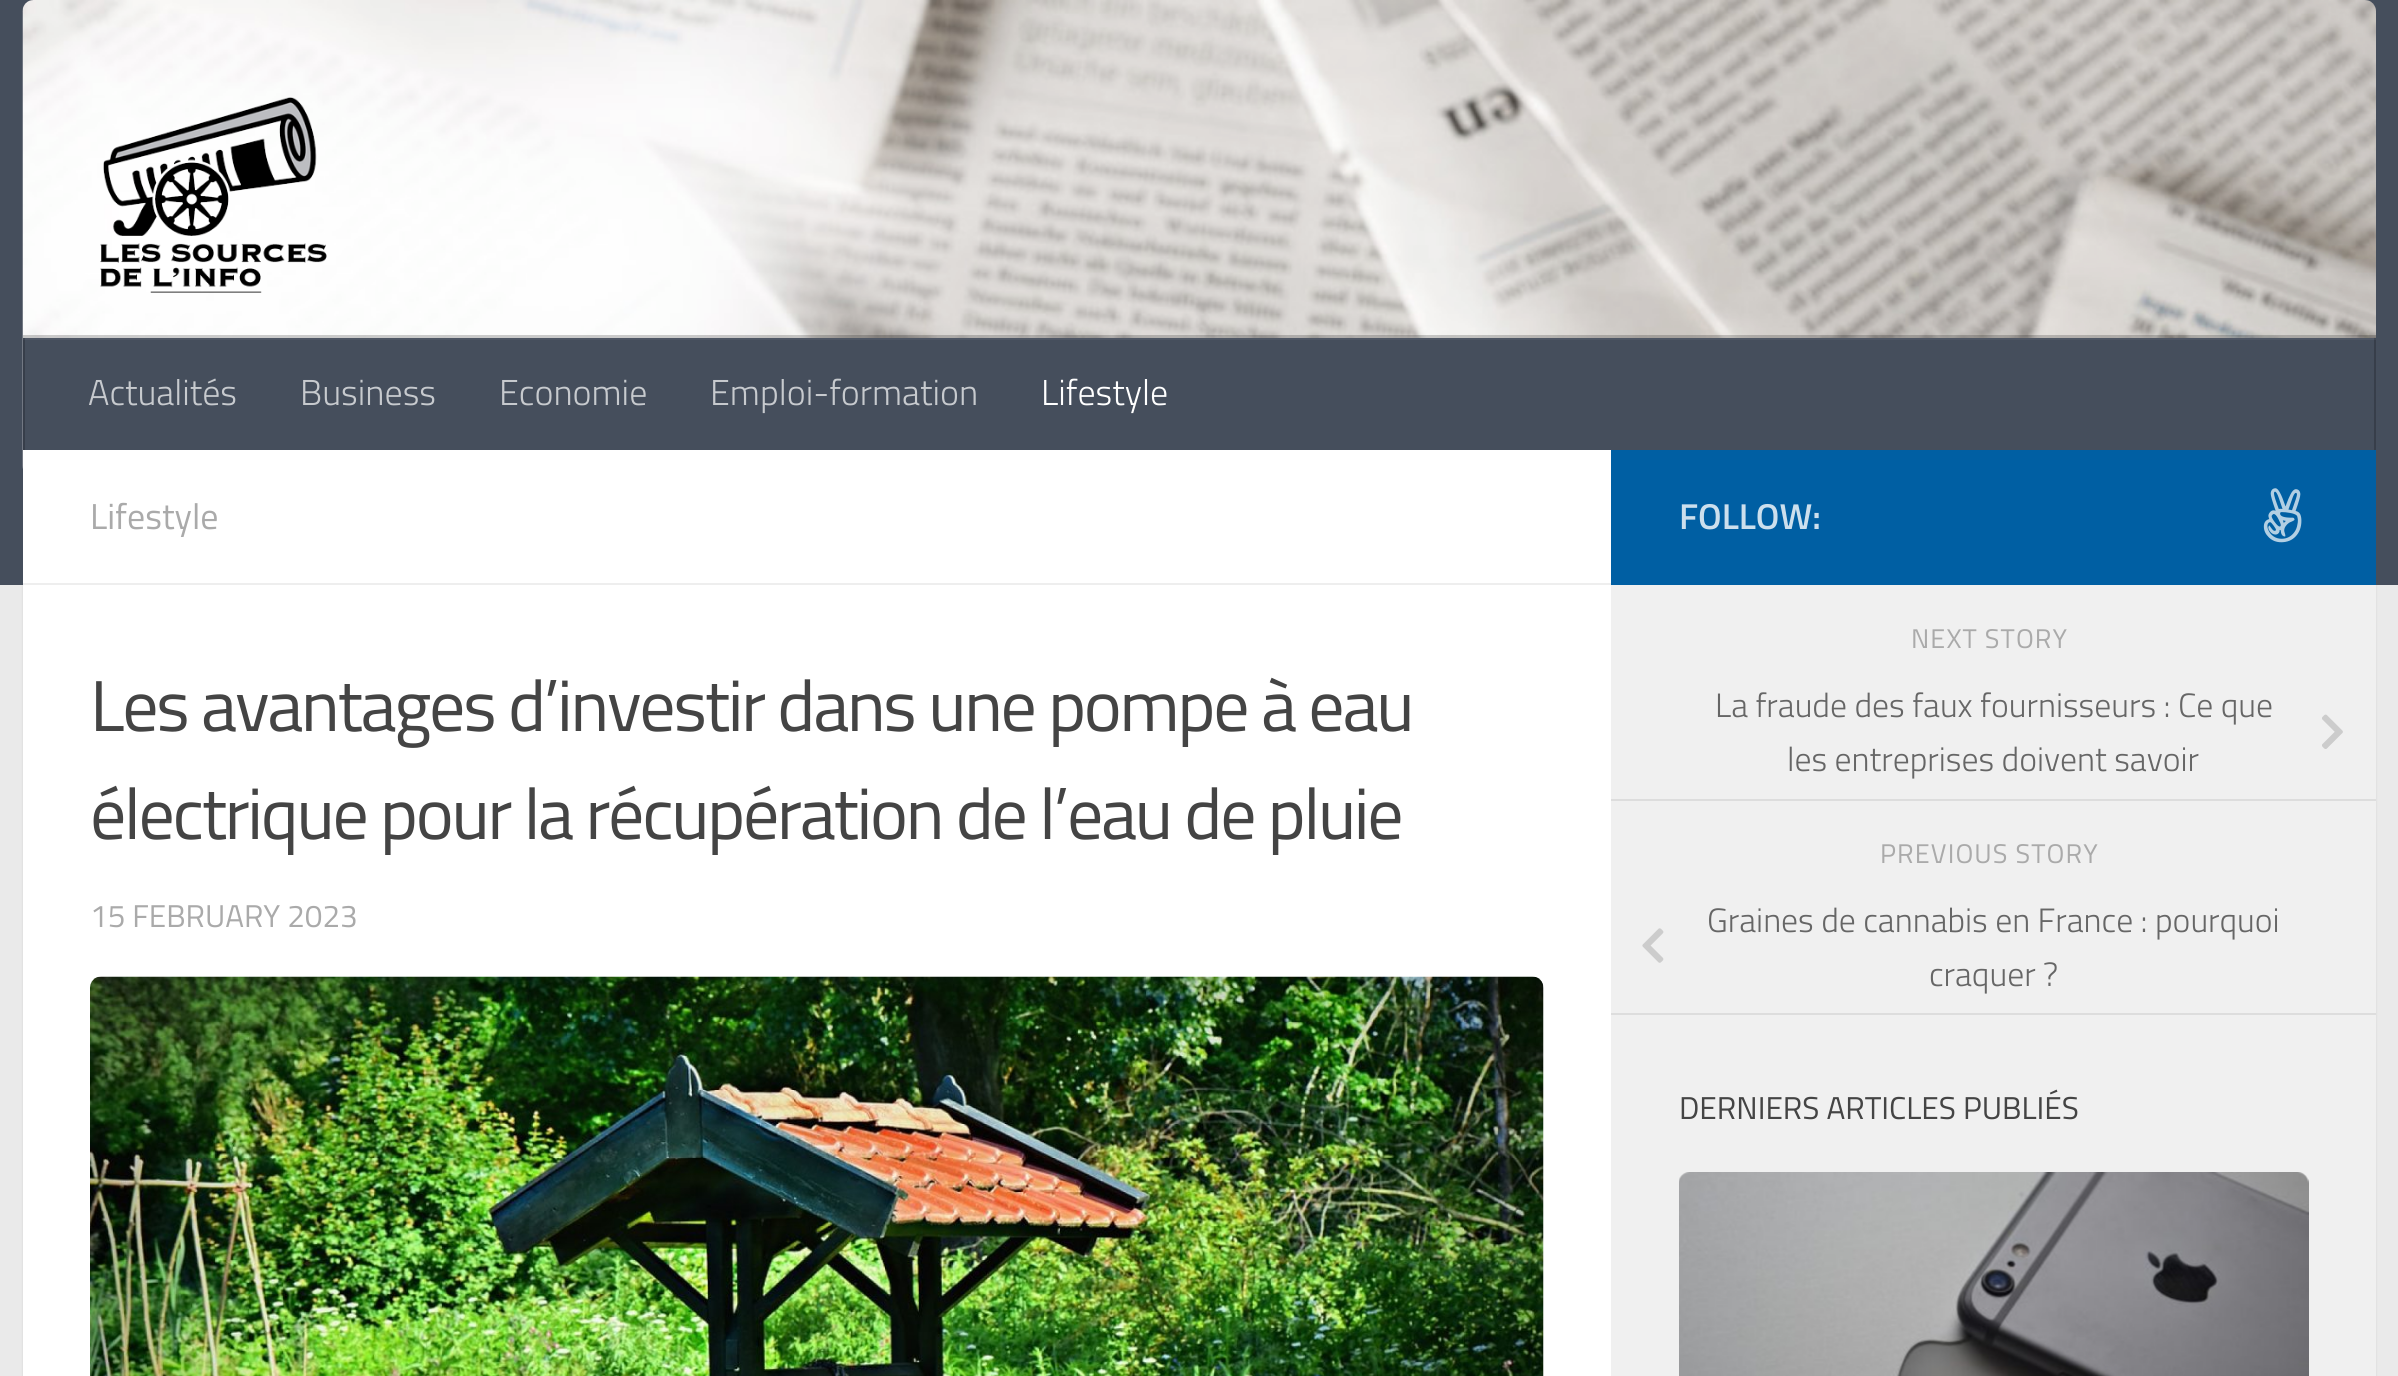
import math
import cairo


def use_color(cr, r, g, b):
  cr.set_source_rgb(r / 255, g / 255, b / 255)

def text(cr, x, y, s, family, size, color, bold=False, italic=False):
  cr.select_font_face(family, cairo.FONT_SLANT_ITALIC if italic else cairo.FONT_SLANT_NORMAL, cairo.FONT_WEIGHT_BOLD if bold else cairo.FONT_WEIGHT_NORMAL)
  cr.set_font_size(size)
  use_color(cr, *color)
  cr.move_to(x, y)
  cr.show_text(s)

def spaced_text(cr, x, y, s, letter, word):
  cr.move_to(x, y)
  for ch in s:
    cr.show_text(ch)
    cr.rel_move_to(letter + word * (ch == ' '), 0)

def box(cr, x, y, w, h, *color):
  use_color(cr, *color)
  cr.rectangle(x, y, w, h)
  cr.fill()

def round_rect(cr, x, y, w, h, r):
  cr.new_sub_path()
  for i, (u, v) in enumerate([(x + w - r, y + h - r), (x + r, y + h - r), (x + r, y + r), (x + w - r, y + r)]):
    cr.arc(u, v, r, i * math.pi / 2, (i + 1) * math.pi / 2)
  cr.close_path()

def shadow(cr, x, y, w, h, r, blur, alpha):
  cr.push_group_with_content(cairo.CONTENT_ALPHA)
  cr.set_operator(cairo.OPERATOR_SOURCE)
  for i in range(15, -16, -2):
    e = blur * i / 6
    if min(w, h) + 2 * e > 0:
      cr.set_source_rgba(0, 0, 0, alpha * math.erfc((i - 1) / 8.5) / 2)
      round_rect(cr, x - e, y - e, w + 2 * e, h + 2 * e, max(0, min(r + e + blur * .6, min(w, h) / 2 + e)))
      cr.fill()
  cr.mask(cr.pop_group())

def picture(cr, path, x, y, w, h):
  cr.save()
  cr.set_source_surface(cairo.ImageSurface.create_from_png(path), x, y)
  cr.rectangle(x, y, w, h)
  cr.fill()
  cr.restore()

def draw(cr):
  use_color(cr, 234, 234, 234)
  cr.paint()
  use_color(cr, 0, 0, 0)
  shadow(cr, 23, 452, 2353, 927, 0, 1, 0.1)
  box(cr, 0, 0, 2398, 585, 69, 78, 92)
  picture(cr, "img_01.png", 22, 0, 2354, 469)
  picture(cr, "img_02.png", 100, 97, 227, 196)
  cr.set_source_rgba(0, 0, 0, 0.2)
  cr.rectangle(23, 335, 2353, 3)
  cr.fill()
  box(cr, 25, 338, 2349, 112, 69, 78, 92)
  box(cr, 2374, 338, 2, 112, 55, 62, 74)
  box(cr, 23, 338, 2, 112, 55, 62, 74)
  cr.set_source_rgba(1, 1, 1, 0.05)
  cr.rectangle(23, 338, 2353, 2)
  cr.fill()
  box(cr, 23, 450, 1588, 926, 255, 255, 255)
  box(cr, 23, 583, 1588, 2, 238, 238, 238)
  picture(cr, "img_03.png", 90, 976, 1454, 400)
  box(cr, 1611, 450, 765, 135, 0, 95, 163)
  picture(cr, "img_04.png", 2263, 488, 39, 55)
  box(cr, 1611, 585, 765, 791, 240, 240, 240)
  box(cr, 1611, 799, 765, 2, 221, 221, 221)
  picture(cr, "img_05.png", 2322, 714, 21, 35)
  box(cr, 1611, 1013, 765, 2, 221, 221, 221)
  picture(cr, "img_06.png", 1642, 928, 22, 35)
  picture(cr, "img_07.png", 1679, 1172, 630, 204)
  text(cr, 88, 405, "Actualités", "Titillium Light", 36, (199, 202, 206))
  text(cr, 300, 405, "Business", "Titillium Light", 36, (199, 202, 206))
  text(cr, 499, 405, "Economie", "Titillium Light", 36, (199, 202, 206))
  text(cr, 710, 405, "Emploi-formation", "Titillium Light", 36, (199, 202, 206))
  text(cr, 1041, 405, "Lifestyle", "Titillium Light", 36, (255, 255, 255))
  text(cr, 90, 529, "Lifestyle", "Titillium", 36, (170, 170, 170))
  cr.set_font_size(72)
  use_color(cr, 68, 68, 68)
  spaced_text(cr, 90, 731, "Les avantages d’investir dans une pompe à eau", -2.25, 0)
  spaced_text(cr, 90, 839, "électrique pour la récupération de l’eau de pluie", -2.25, 0)
  text(cr, 90, 927, "15 FEBRUARY 2023", "Titillium", 31.5, (170, 170, 170))
  text(cr, 1679, 529, "FOLLOW:", "Titillium SemiBold", 36, (204, 223, 237))
  cr.select_font_face("Titillium")
  cr.set_font_size(27)
  use_color(cr, 170, 170, 170)
  spaced_text(cr, 1911, 648, "NEXT STORY", 1.1, 0)
  text(cr, 1715, 717, "La fraude des faux fournisseurs : Ce que", "Titillium Light", 33.75, (102, 102, 102))
  text(cr, 1787, 771, "les entreprises doivent savoir", "Titillium Light", 33.75, (102, 102, 102))
  cr.select_font_face("Titillium")
  cr.set_font_size(27)
  use_color(cr, 170, 170, 170)
  spaced_text(cr, 1880, 863, "PREVIOUS STORY", 1.1, 0)
  text(cr, 1707, 932, "Graines de cannabis en France : pourquoi", "Titillium Light", 33.75, (102, 102, 102))
  text(cr, 1929, 986, "craquer ?", "Titillium Light", 33.75, (102, 102, 102))
  text(cr, 1679, 1119, "DERNIERS ARTICLES PUBLIÉS", "Titillium", 31.6, (68, 68, 68))


surface = cairo.ImageSurface(cairo.FORMAT_RGB24, 2398, 1376)
cr = cairo.Context(surface)
options = cairo.FontOptions()
options.set_hint_metrics(cairo.HINT_METRICS_OFF)
options.set_hint_style(cairo.HINT_STYLE_NONE)
cr.set_font_options(options)
cr.set_miter_limit(4)
draw(cr)
surface.write_to_png("out.png")
